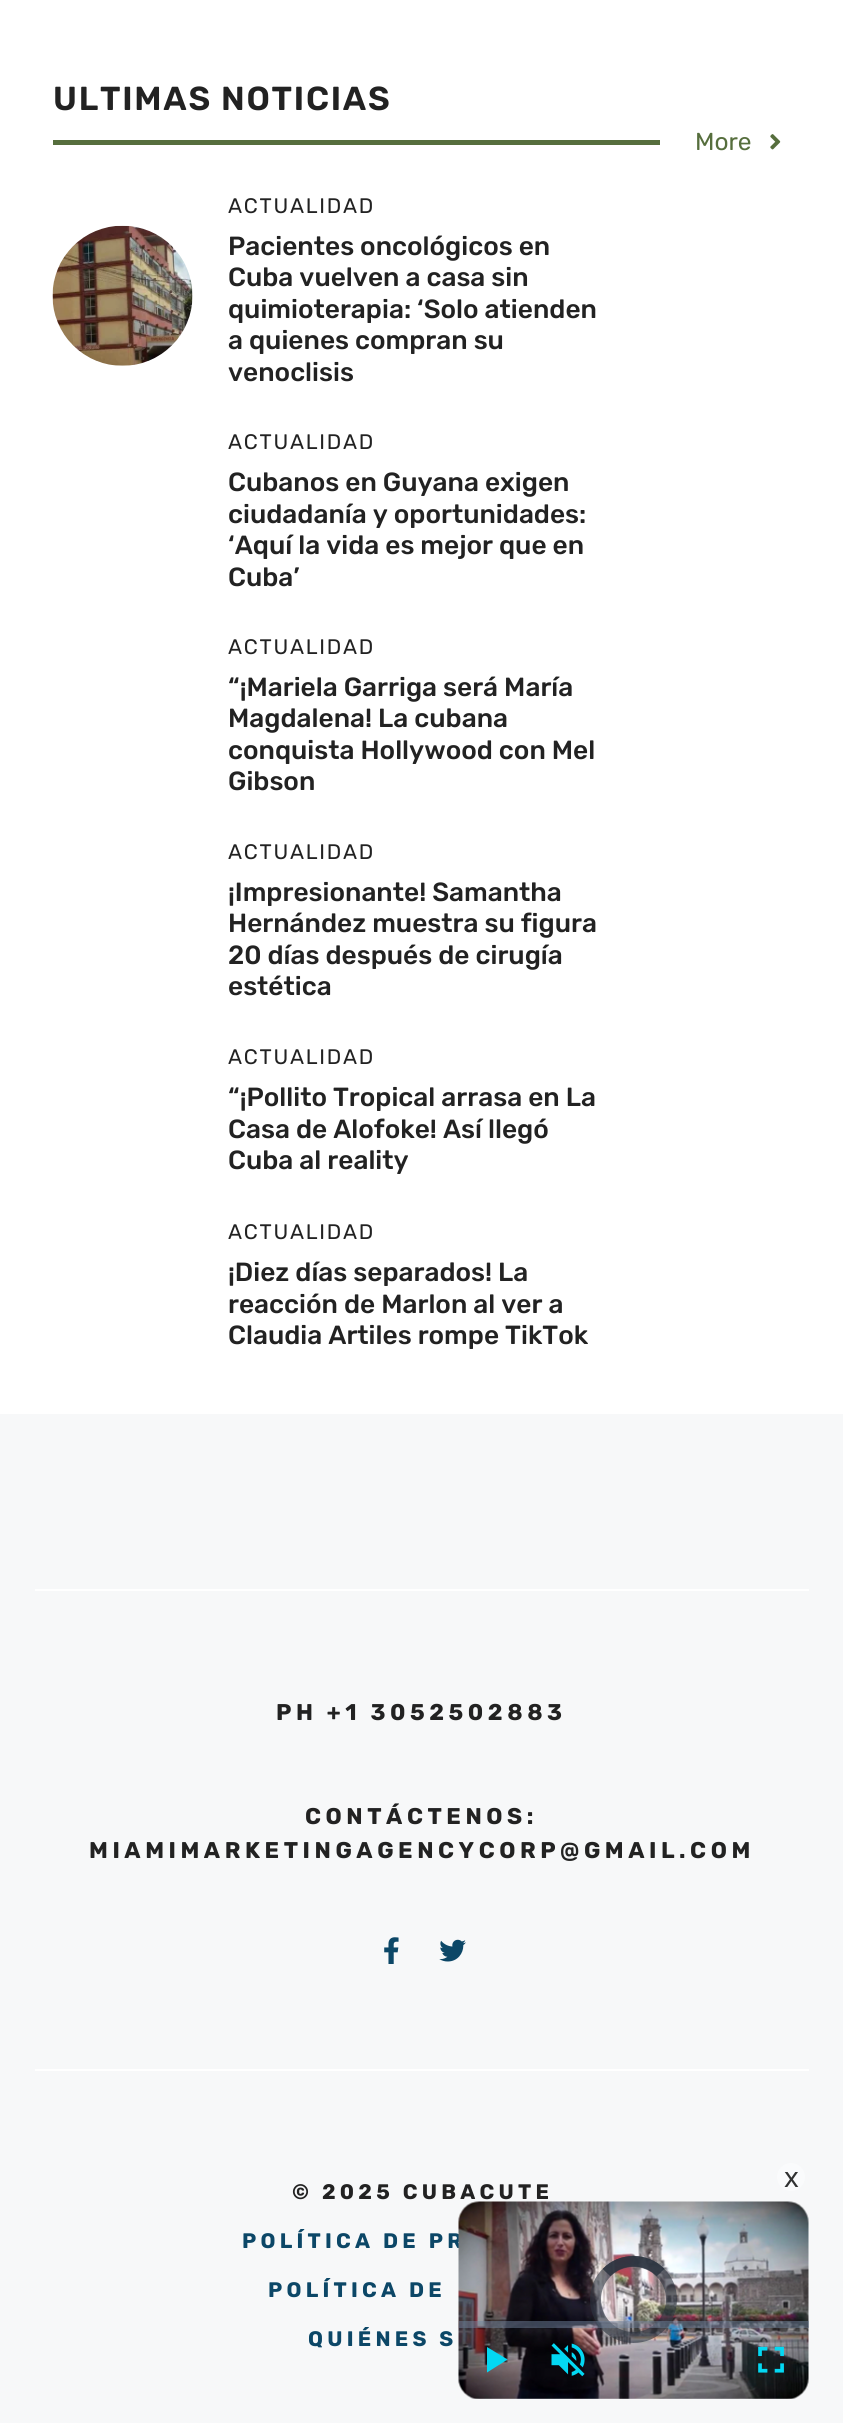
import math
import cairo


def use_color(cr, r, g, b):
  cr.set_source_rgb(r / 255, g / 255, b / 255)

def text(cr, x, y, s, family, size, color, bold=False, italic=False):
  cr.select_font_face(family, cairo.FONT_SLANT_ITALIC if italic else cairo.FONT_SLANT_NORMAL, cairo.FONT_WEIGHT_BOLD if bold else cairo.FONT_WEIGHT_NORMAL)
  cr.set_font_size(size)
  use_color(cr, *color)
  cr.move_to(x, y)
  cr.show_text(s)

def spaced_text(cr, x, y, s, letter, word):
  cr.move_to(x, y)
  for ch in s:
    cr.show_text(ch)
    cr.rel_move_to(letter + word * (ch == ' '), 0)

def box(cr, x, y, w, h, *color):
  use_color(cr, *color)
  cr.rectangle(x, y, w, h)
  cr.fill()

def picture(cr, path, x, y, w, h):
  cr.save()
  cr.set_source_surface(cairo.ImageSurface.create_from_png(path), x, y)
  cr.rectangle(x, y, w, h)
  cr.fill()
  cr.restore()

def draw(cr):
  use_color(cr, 255, 255, 255)
  cr.paint()
  box(cr, 53, 140, 607, 5, 86, 110, 61)
  picture(cr, "img_01.png", 770, 134, 11, 16)
  picture(cr, "img_02.png", 52, 225, 141, 141)
  box(cr, 0, 1414, 843, 1009, 247, 248, 249)
  use_color(cr, 250, 251, 252)
  cr.arc(791, 2177, 14, 0, 2 * math.pi)
  cr.fill()
  box(cr, 35, 1589, 774, 2, 255, 255, 255)
  box(cr, 35, 2069, 774, 2, 255, 255, 255)
  picture(cr, "img_06.png", 384, 1937, 15, 27)
  picture(cr, "img_07.png", 439, 1939, 27, 23)
  cr.select_font_face("Rubik SemiBold")
  cr.set_font_size(33.25)
  use_color(cr, 34, 34, 34)
  spaced_text(cr, 53, 110, "ULTIMAS NOTICIAS", 1.75, 0)
  text(cr, 695, 150, "More", "Rubik", 24.5, (86, 110, 61))
  cr.set_font_size(21)
  use_color(cr, 34, 34, 34)
  spaced_text(cr, 228, 213, "ACTUALIDAD", 1.75, 0)
  text(cr, 228, 255, "Pacientes oncológicos en", "Rubik Medium", 26.25, (34, 34, 34))
  text(cr, 228, 286, "Cuba vuelven a casa sin", "Rubik Medium", 26.25, (34, 34, 34))
  text(cr, 228, 318, "quimioterapia: ‘Solo atienden", "Rubik Medium", 26.25, (34, 34, 34))
  text(cr, 228, 349, "a quienes compran su", "Rubik Medium", 26.25, (34, 34, 34))
  text(cr, 228, 381, "venoclisis", "Rubik Medium", 26.25, (34, 34, 34))
  cr.select_font_face("Rubik")
  cr.set_font_size(21)
  spaced_text(cr, 228, 449, "ACTUALIDAD", 1.75, 0)
  text(cr, 228, 491, "Cubanos en Guyana exigen", "Rubik Medium", 26.25, (34, 34, 34))
  text(cr, 228, 523, "ciudadanía y oportunidades:", "Rubik Medium", 26.25, (34, 34, 34))
  text(cr, 228, 554, "‘Aquí la vida es mejor que en", "Rubik Medium", 26.25, (34, 34, 34))
  text(cr, 228, 586, "Cuba’", "Rubik Medium", 26.25, (34, 34, 34))
  cr.select_font_face("Rubik")
  cr.set_font_size(21)
  spaced_text(cr, 228, 654, "ACTUALIDAD", 1.75, 0)
  text(cr, 228, 696, "“¡Mariela Garriga será María", "Rubik Medium", 26.25, (34, 34, 34))
  text(cr, 228, 727, "Magdalena! La cubana", "Rubik Medium", 26.25, (34, 34, 34))
  text(cr, 228, 759, "conquista Hollywood con Mel", "Rubik Medium", 26.25, (34, 34, 34))
  text(cr, 228, 790, "Gibson", "Rubik Medium", 26.25, (34, 34, 34))
  cr.select_font_face("Rubik")
  cr.set_font_size(21)
  spaced_text(cr, 228, 859, "ACTUALIDAD", 1.75, 0)
  text(cr, 228, 901, "¡Impresionante! Samantha", "Rubik Medium", 26.25, (34, 34, 34))
  text(cr, 228, 932, "Hernández muestra su figura", "Rubik Medium", 26.25, (34, 34, 34))
  text(cr, 228, 964, "20 días después de cirugía", "Rubik Medium", 26.25, (34, 34, 34))
  text(cr, 228, 995, "estética", "Rubik Medium", 26.25, (34, 34, 34))
  cr.select_font_face("Rubik")
  cr.set_font_size(21)
  spaced_text(cr, 228, 1064, "ACTUALIDAD", 1.75, 0)
  text(cr, 228, 1106, "“¡Pollito Tropical arrasa en La", "Rubik Medium", 26.25, (34, 34, 34))
  text(cr, 228, 1138, "Casa de Alofoke! Así llegó", "Rubik Medium", 26.25, (34, 34, 34))
  text(cr, 228, 1169, "Cuba al reality", "Rubik Medium", 26.25, (34, 34, 34))
  cr.select_font_face("Rubik")
  cr.set_font_size(21)
  spaced_text(cr, 228, 1239, "ACTUALIDAD", 1.75, 0)
  text(cr, 228, 1281, "¡Diez días separados! La", "Rubik Medium", 26.25, (34, 34, 34))
  text(cr, 228, 1313, "reacción de Marlon al ver a", "Rubik Medium", 26.25, (34, 34, 34))
  text(cr, 228, 1344, "Claudia Artiles rompe TikTok", "Rubik Medium", 26.25, (34, 34, 34))
  text(cr, 784, 2187, "x", "Noto Sans", 28, (49, 50, 50))
  cr.select_font_face("Rubik", cairo.FONT_SLANT_NORMAL, cairo.FONT_WEIGHT_BOLD)
  cr.set_font_size(22.75)
  use_color(cr, 34, 34, 34)
  spaced_text(cr, 276, 1720, "PH +1 3052502883", 4.55, 0)
  spaced_text(cr, 305, 1824, "CONTÁCTENOS:", 4.55, 0)
  spaced_text(cr, 89, 1858, "MIAMIMARKETINGAGENCYCORP@GMAIL.COM", 4.55, 0)
  cr.set_font_size(21)
  spaced_text(cr, 292, 2199, "© 2025 CUBACUTE", 4.25, 0)
  use_color(cr, 12, 71, 103)
  spaced_text(cr, 242, 2248, "POLÍTICA DE PR", 4.25, 0)
  picture(cr, "img_03.png", 458, 2201, 351, 198)
  cr.arc(633.5, 2299.5, 38, 0, 2 * math.pi)
  cr.set_source_rgba(0.169, 0.2, 0.247, 0.59)
  cr.set_line_width(11)
  cr.stroke()
  cr.set_source_rgba(0.451, 0.522, 0.624, 0.5)
  cr.rectangle(459, 2321, 350, 7)
  cr.fill()
  picture(cr, "img_05.png", 758, 2346, 26, 27)
  picture(cr, "img_04.png", 551, 2343, 34, 34)
  use_color(cr, 3, 216, 243)
  cr.new_path()
  cr.move_to(487, 2347)
  cr.line_to(487, 2372.5)
  cr.line_to(507.5, 2359.5)
  cr.close_path()
  cr.fill()
  cr.new_path()
  cr.move_to(606.5, 2272.5)
  cr.curve_to(621, 2257.5, 646, 2257.5, 660.5, 2272.5)
  cr.set_source_rgba(0.169, 0.2, 0.247, 0.59)
  cr.set_line_width(10.5)
  cr.stroke()
  cr.new_path()
  cr.move_to(606.5, 2272.5)
  cr.curve_to(621, 2257.5, 646, 2257.5, 660.5, 2272.5)
  cr.stroke()
  use_color(cr, 12, 71, 103)
  spaced_text(cr, 268, 2297, "POLÍTICA DE", 4.25, 0)
  spaced_text(cr, 308, 2346, "QUIÉNES S", 4.25, 0)


surface = cairo.ImageSurface(cairo.FORMAT_RGB24, 843, 2423)
cr = cairo.Context(surface)
options = cairo.FontOptions()
options.set_hint_metrics(cairo.HINT_METRICS_OFF)
options.set_hint_style(cairo.HINT_STYLE_NONE)
cr.set_font_options(options)
cr.set_miter_limit(4)
draw(cr)
surface.write_to_png("out.png")
